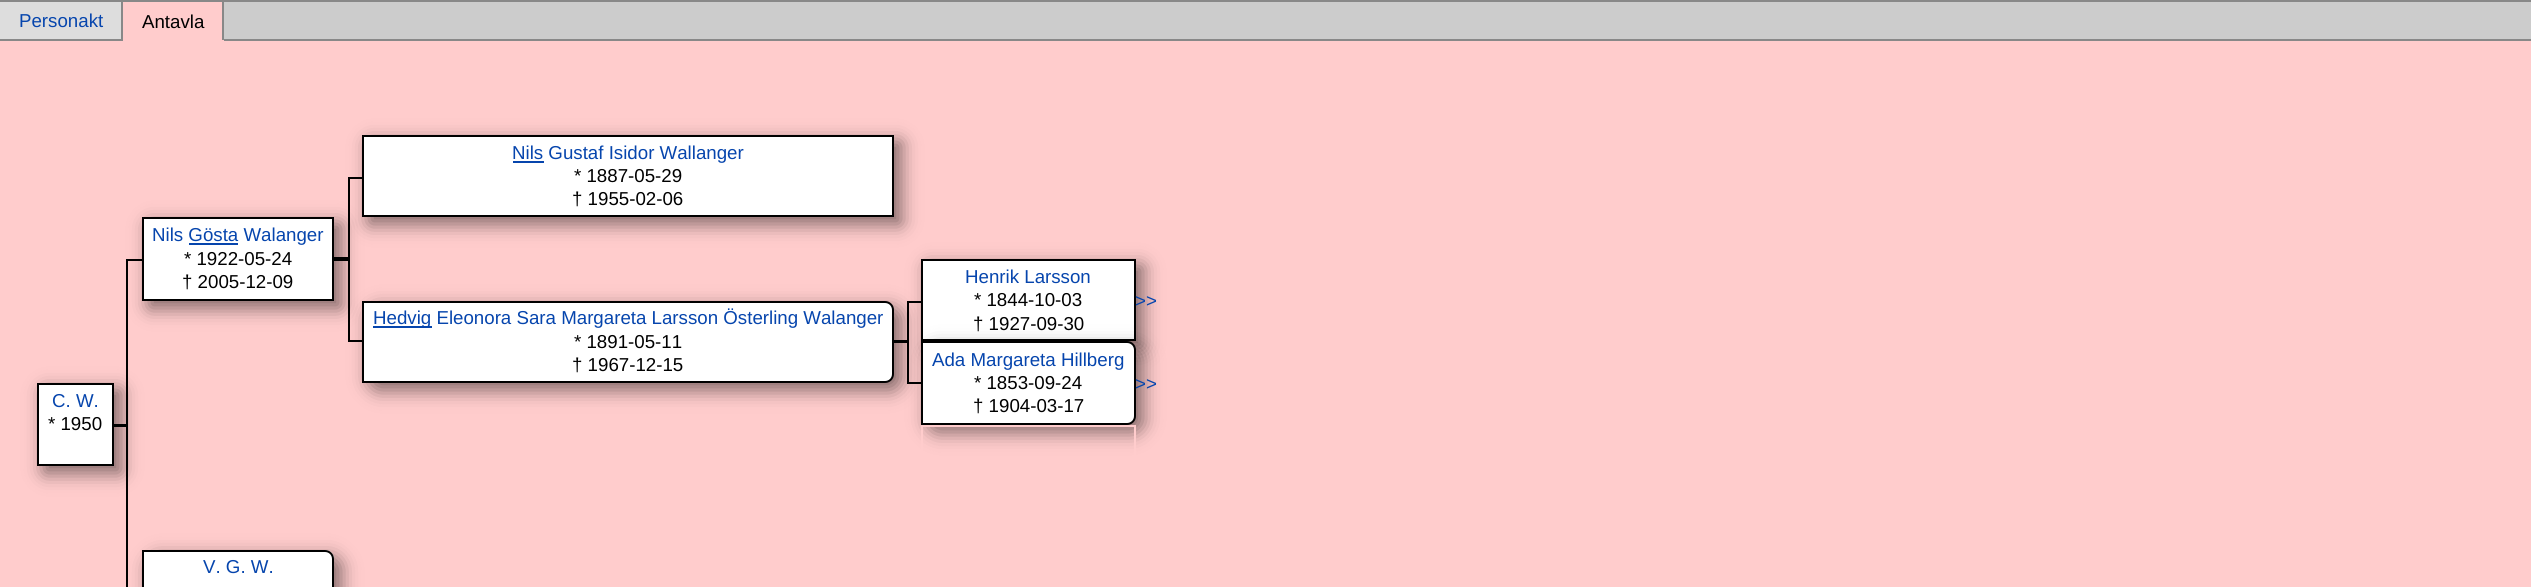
import math
import cairo


def use_color(cr, r, g, b):
  cr.set_source_rgb(r / 255, g / 255, b / 255)

def text(cr, x, y, s, family, size, color, bold=False, italic=False):
  cr.select_font_face(family, cairo.FONT_SLANT_ITALIC if italic else cairo.FONT_SLANT_NORMAL, cairo.FONT_WEIGHT_BOLD if bold else cairo.FONT_WEIGHT_NORMAL)
  cr.set_font_size(size)
  use_color(cr, *color)
  cr.move_to(x, y)
  cr.show_text(s)

def box(cr, x, y, w, h, *color):
  use_color(cr, *color)
  cr.rectangle(x, y, w, h)
  cr.fill()

def round_rect(cr, x, y, w, h, r):
  cr.new_sub_path()
  for i, (u, v) in enumerate([(x + w - r, y + h - r), (x + r, y + h - r), (x + r, y + r), (x + w - r, y + r)]):
    cr.arc(u, v, r, i * math.pi / 2, (i + 1) * math.pi / 2)
  cr.close_path()

def shadow(cr, x, y, w, h, r, blur, alpha):
  cr.push_group_with_content(cairo.CONTENT_ALPHA)
  cr.set_operator(cairo.OPERATOR_SOURCE)
  for i in range(15, -16, -2):
    e = blur * i / 6
    if min(w, h) + 2 * e > 0:
      cr.set_source_rgba(0, 0, 0, alpha * math.erfc((i - 1) / 8.5) / 2)
      round_rect(cr, x - e, y - e, w + 2 * e, h + 2 * e, max(0, min(r + e + blur * .6, min(w, h) / 2 + e)))
      cr.fill()
  cr.mask(cr.pop_group())

def draw(cr):
  use_color(cr, 255, 204, 204)
  cr.paint()
  box(cr, 0, 2, 121, 37, 221, 221, 221)
  box(cr, 0, 0, 2531, 2, 136, 136, 136)
  box(cr, 121, 0, 2, 40, 136, 136, 136)
  box(cr, 0, 39, 123, 2, 136, 136, 136)
  box(cr, 222, 0, 2, 40, 136, 136, 136)
  box(cr, 224, 2, 2307, 37, 204, 204, 204)
  box(cr, 224, 39, 2307, 2, 136, 136, 136)
  use_color(cr, 0, 0, 0)
  shadow(cr, 369, 142, 532, 82, 0, 9.5, 0.5)
  shadow(cr, 149, 224, 192, 84, 0, 9.5, 0.5)
  use_color(cr, 255, 255, 255)
  cr.rectangle(363, 136, 530, 80)
  cr.fill_preserve()
  use_color(cr, 0, 0, 0)
  cr.stroke()
  box(cr, 513, 161, 31, 2, 6, 69, 173)
  use_color(cr, 255, 255, 255)
  cr.rectangle(143, 218, 190, 82)
  cr.fill_preserve()
  use_color(cr, 0, 0, 0)
  cr.stroke()
  box(cr, 189, 243, 49, 2, 6, 69, 173)
  box(cr, 334, 257, 14, 4, 0, 0, 0)
  use_color(cr, 0, 0, 0)
  shadow(cr, 44, 390, 77, 83, 0, 9.5, 0.5)
  use_color(cr, 255, 255, 255)
  cr.rectangle(38, 384, 75, 81)
  cr.fill_preserve()
  use_color(cr, 0, 0, 0)
  cr.stroke()
  box(cr, 114, 424, 12, 3, 0, 0, 0)
  box(cr, 348, 177, 14, 2, 0, 0, 0)
  box(cr, 348, 177, 2, 82, 0, 0, 0)
  box(cr, 126, 259, 16, 2, 0, 0, 0)
  box(cr, 126, 259, 2, 328, 0, 0, 0)
  box(cr, 348, 340, 14, 2, 0, 0, 0)
  box(cr, 348, 259, 2, 82, 0, 0, 0)
  use_color(cr, 0, 0, 0)
  shadow(cr, 369, 308, 532, 82, 9, 9.5, 0.5)
  box(cr, 894, 340, 13, 1, 0, 0, 0)
  use_color(cr, 0, 0, 0)
  shadow(cr, 928, 266, 215, 82, 0, 9.5, 0.5)
  use_color(cr, 255, 255, 255)
  cr.rectangle(922, 260, 213, 80)
  cr.fill_preserve()
  use_color(cr, 0, 0, 0)
  cr.stroke()
  use_color(cr, 255, 255, 255)
  cr.new_path()
  cr.move_to(363, 302)
  cr.line_to(885, 302)
  cr.curve_to(889.5, 302, 893, 305.5, 893, 310)
  cr.line_to(893, 374)
  cr.curve_to(893, 378.5, 889.5, 382, 885, 382)
  cr.line_to(363, 382)
  cr.close_path()
  cr.fill_preserve()
  use_color(cr, 0, 0, 0)
  cr.stroke()
  box(cr, 373, 326, 59, 2, 6, 69, 173)
  box(cr, 907, 301, 14, 2, 0, 0, 0)
  box(cr, 907, 301, 2, 40, 0, 0, 0)
  box(cr, 894, 341, 13, 2, 0, 0, 0)
  box(cr, 907, 382, 14, 2, 0, 0, 0)
  box(cr, 907, 341, 2, 42, 0, 0, 0)
  use_color(cr, 0, 0, 0)
  shadow(cr, 928, 348, 215, 84, 9, 9.5, 0.5)
  use_color(cr, 255, 255, 255)
  cr.new_path()
  cr.move_to(922, 342)
  cr.line_to(1127, 342)
  cr.curve_to(1131.5, 342, 1135, 345.5, 1135, 350)
  cr.line_to(1135, 416)
  cr.curve_to(1135, 420.5, 1131.5, 424, 1127, 424)
  cr.line_to(922, 424)
  cr.close_path()
  cr.fill_preserve()
  use_color(cr, 0, 0, 0)
  cr.stroke()
  cr.rectangle(922, 426, 213, 81)
  use_color(cr, 255, 204, 204)
  cr.stroke()
  use_color(cr, 0, 0, 0)
  shadow(cr, 149, 557, 192, 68, 9, 9.5, 0.5)
  use_color(cr, 255, 255, 255)
  cr.new_path()
  cr.move_to(142, 550)
  cr.line_to(325, 550)
  cr.curve_to(330, 550, 334, 554, 334, 559)
  cr.line_to(334, 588)
  cr.line_to(142, 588)
  cr.close_path()
  cr.fill()
  cr.new_path()
  cr.move_to(143, 551)
  cr.line_to(325, 551)
  cr.curve_to(329.5, 551, 333, 554.5, 333, 559)
  cr.line_to(333, 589)
  cr.curve_to(333, 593.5, 329.5, 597, 325, 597)
  cr.line_to(143, 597)
  cr.close_path()
  use_color(cr, 0, 0, 0)
  cr.stroke()
  text(cr, 19, 27, "Personakt", "Liberation Sans", 18.7, (6, 69, 173))
  text(cr, 142, 28, "Antavla", "Liberation Sans", 18.7, (0, 0, 0))
  text(cr, 512, 159, "Nils Gustaf Isidor Wallanger", "Liberation Sans", 18.7, (6, 69, 173))
  text(cr, 574, 182, "* 1887-05-29", "Liberation Sans", 18.7, (0, 0, 0))
  text(cr, 572, 205, "† 1955-02-06", "Liberation Sans", 18.7, (0, 0, 0))
  text(cr, 152, 241, "Nils Gösta Walanger", "Liberation Sans", 18.7, (6, 69, 173))
  text(cr, 184, 265, "* 1922-05-24", "Liberation Sans", 18.7, (0, 0, 0))
  text(cr, 182, 288, "† 2005-12-09", "Liberation Sans", 18.7, (0, 0, 0))
  text(cr, 52, 407, "C. W.", "Liberation Sans", 18.7, (6, 69, 173))
  text(cr, 48, 430, "* 1950", "Liberation Sans", 18.7, (0, 0, 0))
  text(cr, 965, 283, "Henrik Larsson", "Liberation Sans", 18.7, (6, 69, 173))
  text(cr, 974, 306, "* 1844-10-03", "Liberation Sans", 18.7, (0, 0, 0))
  text(cr, 973, 330, "† 1927-09-30", "Liberation Sans", 18.7, (0, 0, 0))
  text(cr, 1135, 307, ">>", "Liberation Sans", 18.7, (6, 69, 173))
  text(cr, 373, 324, "Hedvig Eleonora Sara Margareta Larsson Österling Walanger", "Liberation Sans", 18.7, (6, 69, 173))
  text(cr, 574, 348, "* 1891-05-11", "Liberation Sans", 18.7, (0, 0, 0))
  text(cr, 572, 371, "† 1967-12-15", "Liberation Sans", 18.7, (0, 0, 0))
  text(cr, 932, 366, "Ada Margareta Hillberg", "Liberation Sans", 18.7, (6, 69, 173))
  text(cr, 974, 389, "* 1853-09-24", "Liberation Sans", 18.7, (0, 0, 0))
  text(cr, 973, 412, "† 1904-03-17", "Liberation Sans", 18.7, (0, 0, 0))
  text(cr, 1135, 390, ">>", "Liberation Sans", 18.7, (6, 69, 173))
  text(cr, 203, 573, "V. G. W.", "Liberation Sans", 18.7, (6, 69, 173))


surface = cairo.ImageSurface(cairo.FORMAT_RGB24, 2531, 587)
cr = cairo.Context(surface)
options = cairo.FontOptions()
options.set_hint_metrics(cairo.HINT_METRICS_OFF)
options.set_hint_style(cairo.HINT_STYLE_NONE)
cr.set_font_options(options)
cr.set_miter_limit(4)
draw(cr)
surface.write_to_png("out.png")
